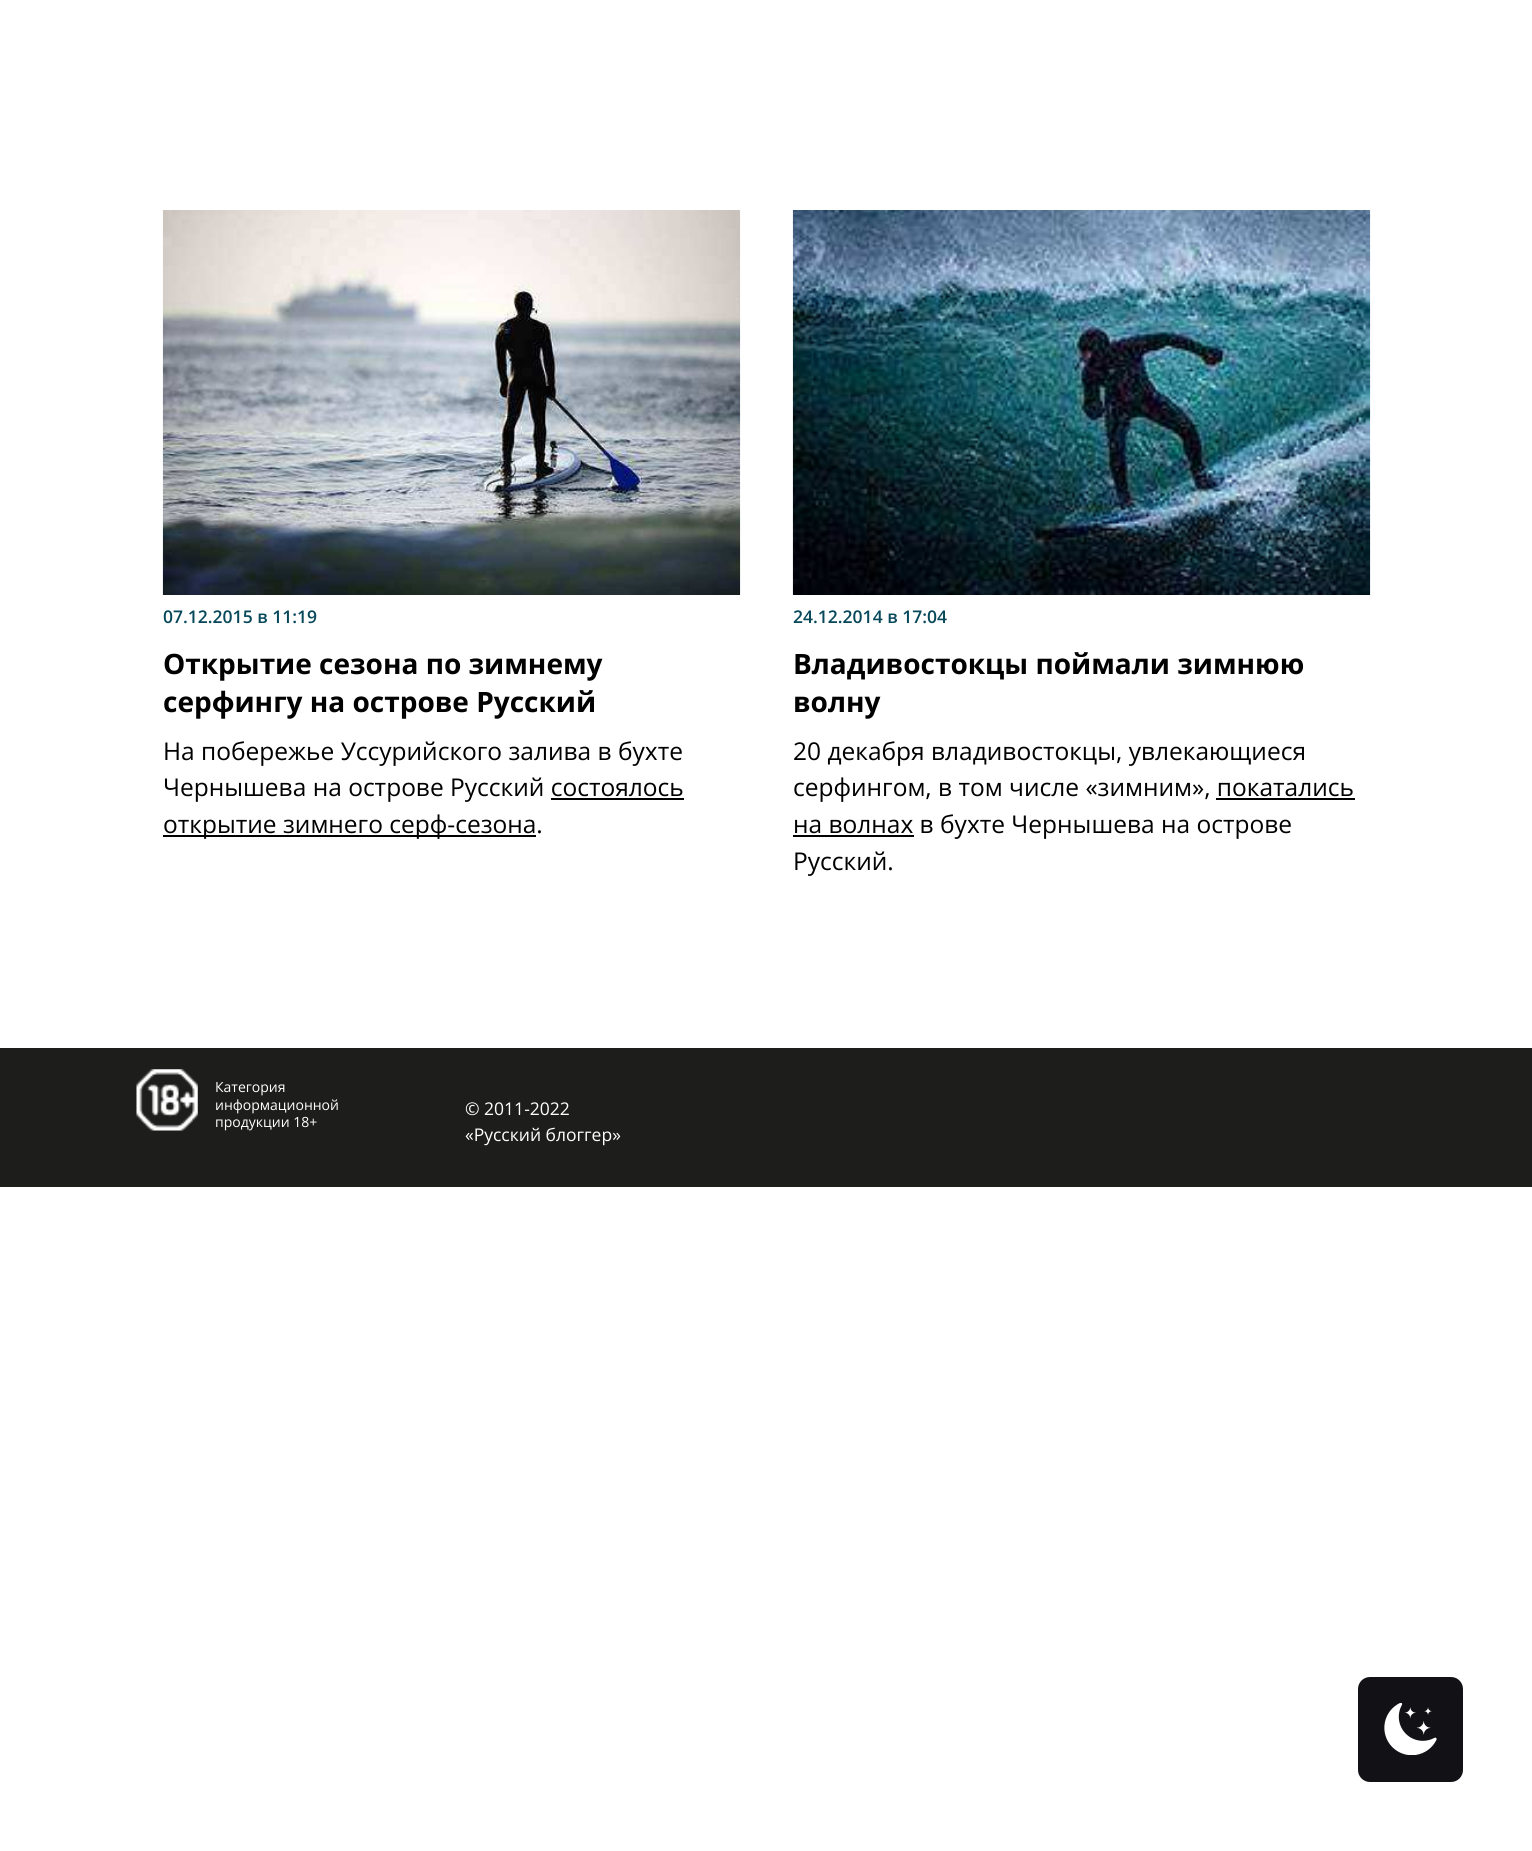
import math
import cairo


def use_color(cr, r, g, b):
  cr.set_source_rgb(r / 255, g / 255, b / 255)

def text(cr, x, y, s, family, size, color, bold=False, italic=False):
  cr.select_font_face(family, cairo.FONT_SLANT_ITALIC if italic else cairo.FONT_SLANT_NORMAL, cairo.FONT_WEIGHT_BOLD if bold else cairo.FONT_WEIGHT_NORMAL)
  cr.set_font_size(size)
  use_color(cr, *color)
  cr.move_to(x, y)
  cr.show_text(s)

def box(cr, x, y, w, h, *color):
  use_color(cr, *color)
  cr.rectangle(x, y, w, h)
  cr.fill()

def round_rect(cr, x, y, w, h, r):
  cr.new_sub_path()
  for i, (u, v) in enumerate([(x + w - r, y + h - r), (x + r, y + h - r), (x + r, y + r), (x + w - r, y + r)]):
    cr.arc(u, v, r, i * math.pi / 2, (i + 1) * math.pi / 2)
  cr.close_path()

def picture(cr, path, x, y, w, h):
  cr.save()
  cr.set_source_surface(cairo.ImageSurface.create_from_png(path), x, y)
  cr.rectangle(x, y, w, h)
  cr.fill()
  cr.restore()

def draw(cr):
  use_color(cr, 255, 255, 255)
  cr.paint()
  picture(cr, "img_01.png", 162, 210, 579, 385)
  box(cr, 551, 798, 133, 2, 0, 0, 0)
  box(cr, 163, 835, 373, 2, 0, 0, 0)
  picture(cr, "img_02.png", 792, 210, 579, 385)
  box(cr, 1216, 798, 139, 2, 0, 0, 0)
  box(cr, 793, 835, 121, 2, 0, 0, 0)
  box(cr, 0, 1048, 1532, 139, 29, 29, 27)
  picture(cr, "img_03.png", 136, 1069, 62, 62)
  use_color(cr, 18, 17, 22)
  round_rect(cr, 1358, 1677, 105, 105, 12)
  cr.fill()
  picture(cr, "img_04.png", 1384, 1703, 53, 52)
  text(cr, 163, 623, "07.12.2015 в 11:19", "Open Sans SemiBold", 17.5, (7, 72, 91))
  text(cr, 163, 674, "Открытие сезона по зимнему", "Open Sans", 28, (0, 0, 0), bold=True)
  text(cr, 163, 712, "серфингу на острове Русский", "Open Sans", 28, (0, 0, 0), bold=True)
  text(cr, 163, 760, "На побережье Уссурийского залива в бухте", "Open Sans", 24.5, (0, 0, 0))
  text(cr, 163, 796, "Чернышева на острове Русский состоялось", "Open Sans", 24.5, (0, 0, 0))
  text(cr, 163, 833, "открытие зимнего серф-сезона.", "Open Sans", 24.5, (0, 0, 0))
  text(cr, 793, 623, "24.12.2014 в 17:04", "Open Sans SemiBold", 17.5, (7, 72, 91))
  text(cr, 793, 674, "Владивостокцы поймали зимнюю", "Open Sans", 28, (0, 0, 0), bold=True)
  text(cr, 793, 712, "волну", "Open Sans", 28, (0, 0, 0), bold=True)
  text(cr, 793, 760, "20 декабря владивостокцы, увлекающиеся", "Open Sans", 24.5, (0, 0, 0))
  text(cr, 793, 796, "серфингом, в том числе «зимним», покатались", "Open Sans", 24.5, (0, 0, 0))
  text(cr, 793, 833, "на волнах в бухте Чернышева на острове", "Open Sans", 24.5, (0, 0, 0))
  text(cr, 793, 870, "Русский.", "Open Sans", 24.5, (0, 0, 0))
  text(cr, 215, 1092, "Категория", "Open Sans", 14, (255, 255, 255))
  text(cr, 215, 1110, "информационной", "Open Sans", 14, (255, 255, 255))
  text(cr, 215, 1127, "продукции 18+", "Open Sans", 14, (255, 255, 255))
  text(cr, 465, 1115, "© 2011-2022", "Open Sans", 17.5, (255, 255, 255))
  text(cr, 465, 1141, "«Русский блоггер»", "Open Sans", 17.5, (255, 255, 255))


surface = cairo.ImageSurface(cairo.FORMAT_RGB24, 1532, 1851)
cr = cairo.Context(surface)
options = cairo.FontOptions()
options.set_hint_metrics(cairo.HINT_METRICS_OFF)
options.set_hint_style(cairo.HINT_STYLE_NONE)
cr.set_font_options(options)
cr.set_miter_limit(4)
draw(cr)
surface.write_to_png("out.png")
